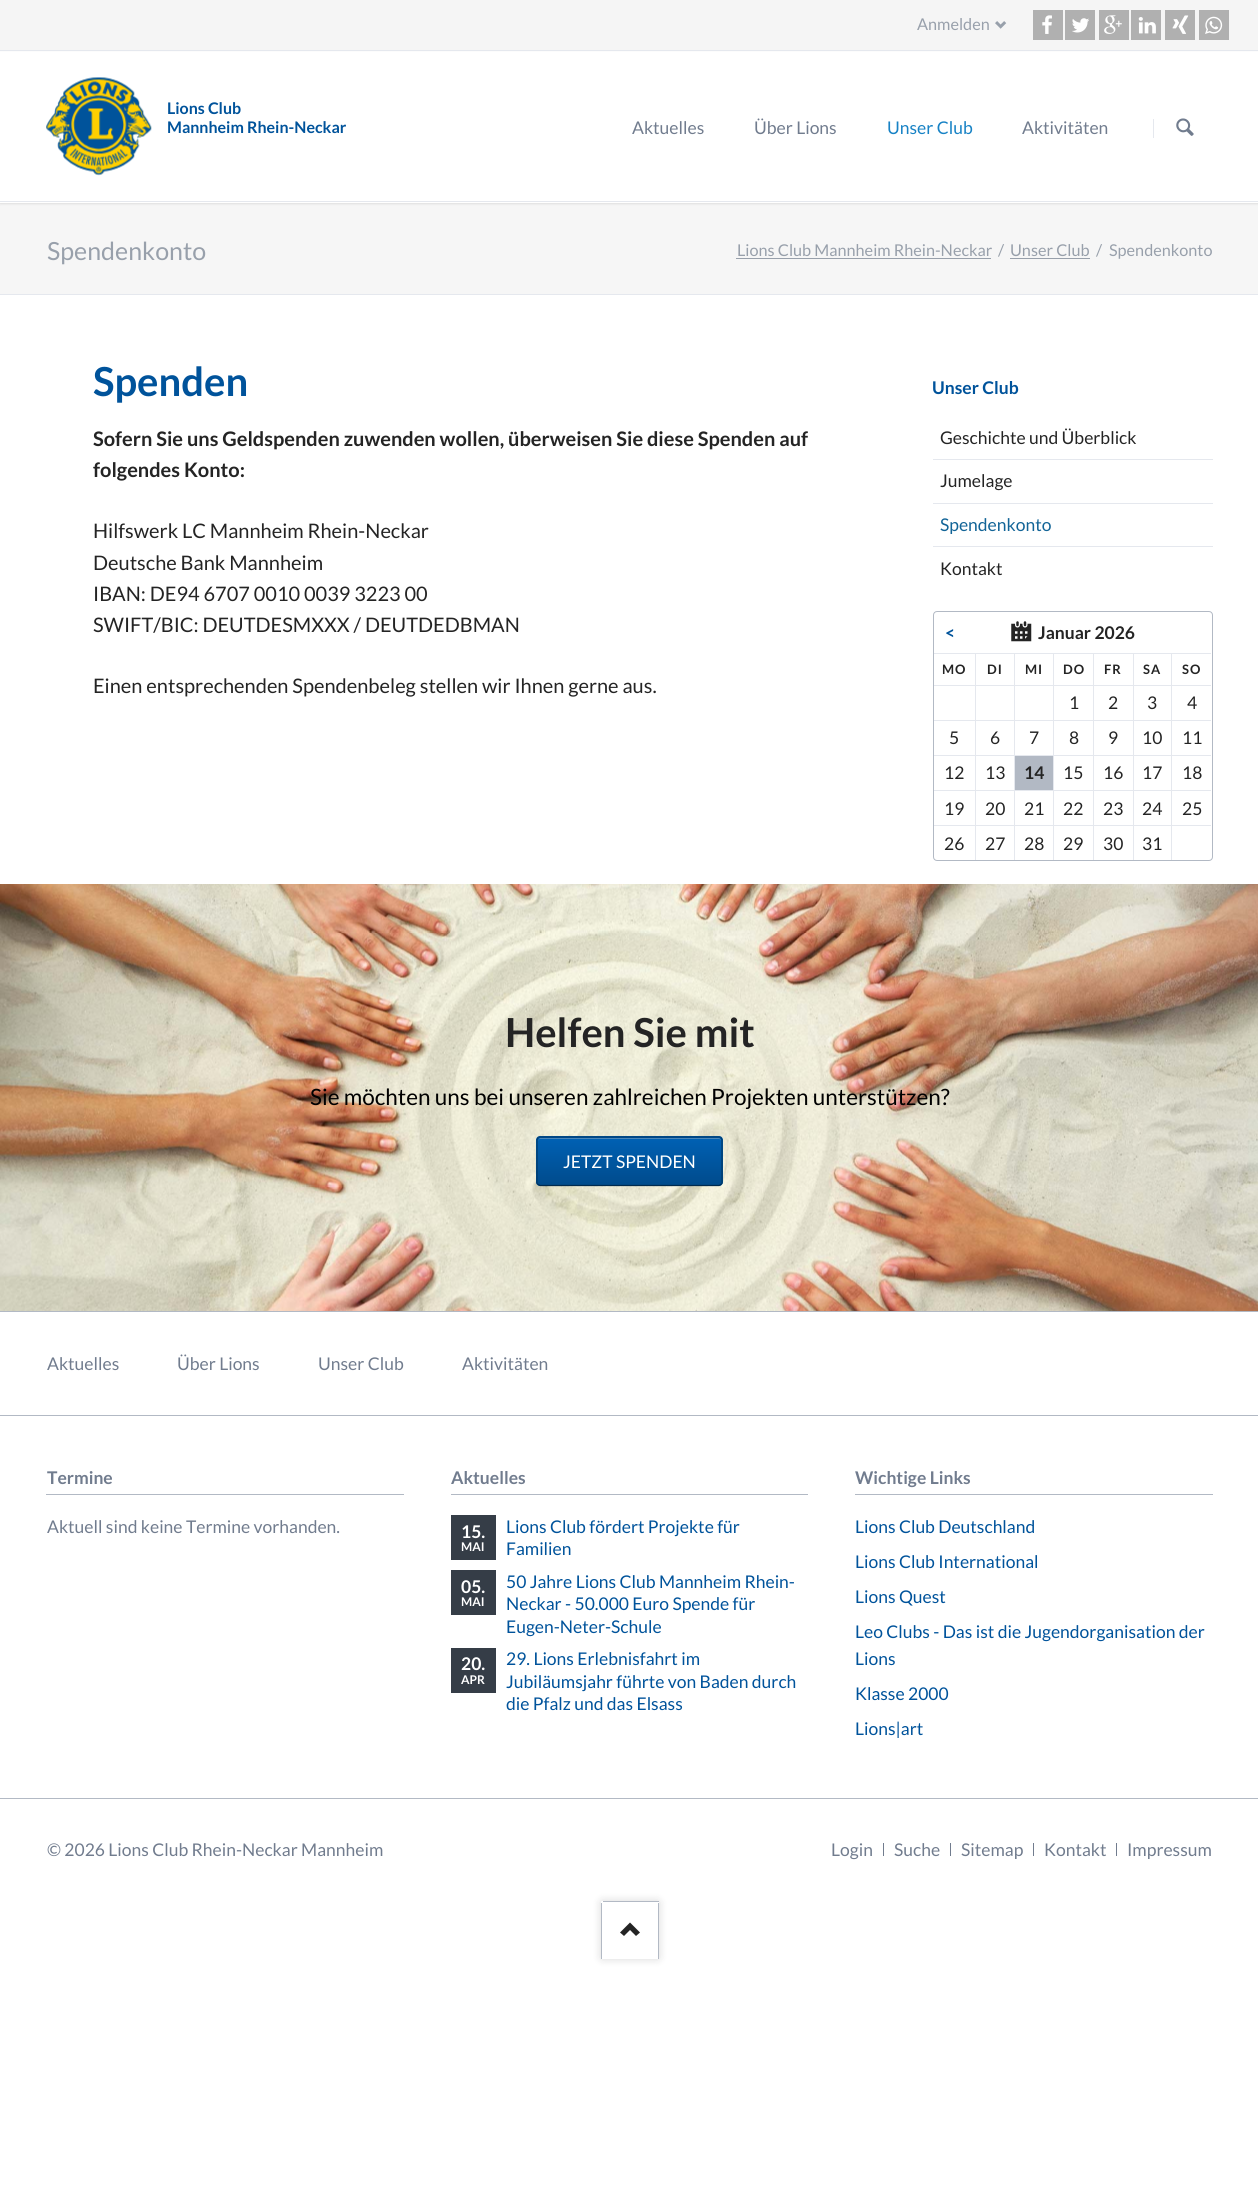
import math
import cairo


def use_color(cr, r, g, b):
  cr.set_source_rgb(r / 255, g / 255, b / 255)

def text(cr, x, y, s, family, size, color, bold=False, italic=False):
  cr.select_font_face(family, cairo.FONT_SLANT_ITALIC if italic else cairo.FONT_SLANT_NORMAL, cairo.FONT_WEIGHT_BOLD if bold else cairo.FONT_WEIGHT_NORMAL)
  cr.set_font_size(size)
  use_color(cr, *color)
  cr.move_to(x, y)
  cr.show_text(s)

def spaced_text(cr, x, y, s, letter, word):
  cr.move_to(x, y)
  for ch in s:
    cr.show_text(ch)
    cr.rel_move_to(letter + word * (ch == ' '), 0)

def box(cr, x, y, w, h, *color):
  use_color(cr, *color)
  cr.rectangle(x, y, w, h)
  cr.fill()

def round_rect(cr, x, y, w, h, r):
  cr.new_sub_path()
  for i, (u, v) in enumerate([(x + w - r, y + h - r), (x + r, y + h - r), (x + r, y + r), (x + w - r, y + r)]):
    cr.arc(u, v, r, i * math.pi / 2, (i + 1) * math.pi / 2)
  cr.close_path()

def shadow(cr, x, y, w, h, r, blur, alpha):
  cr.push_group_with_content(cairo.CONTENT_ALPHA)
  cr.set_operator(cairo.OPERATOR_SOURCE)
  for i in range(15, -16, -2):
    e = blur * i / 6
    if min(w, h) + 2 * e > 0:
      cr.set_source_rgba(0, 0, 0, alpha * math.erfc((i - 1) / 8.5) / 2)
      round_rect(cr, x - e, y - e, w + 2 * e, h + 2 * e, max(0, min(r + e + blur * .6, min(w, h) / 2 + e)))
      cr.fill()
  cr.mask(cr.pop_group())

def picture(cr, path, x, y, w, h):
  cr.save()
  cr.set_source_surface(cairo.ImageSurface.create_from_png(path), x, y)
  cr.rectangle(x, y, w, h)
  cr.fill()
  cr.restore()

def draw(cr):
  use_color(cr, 255, 255, 255)
  cr.paint()
  box(cr, 0, 0, 1258, 50, 245, 245, 245)
  box(cr, 0, 50, 1258, 1, 229, 232, 238)
  picture(cr, "img_01.png", 995, 21, 12, 8)
  box(cr, 1033, 10, 30, 30, 176, 176, 176)
  picture(cr, "img_02.png", 1042, 15, 10, 19)
  box(cr, 1065, 10, 30, 30, 176, 176, 176)
  picture(cr, "img_03.png", 1072, 18, 17, 15)
  box(cr, 1099, 10, 30, 30, 176, 176, 176)
  picture(cr, "img_04.png", 1104, 15, 18, 19)
  box(cr, 1131, 10, 30, 30, 176, 176, 176)
  picture(cr, "img_05.png", 1138, 17, 18, 17)
  box(cr, 1165, 10, 30, 30, 176, 176, 176)
  picture(cr, "img_06.png", 1172, 15, 17, 19)
  box(cr, 1199, 10, 30, 30, 176, 176, 176)
  picture(cr, "img_07.png", 1205, 16, 18, 18)
  box(cr, 0, 203, 1258, 91, 246, 246, 246)
  use_color(cr, 0, 0, 0)
  shadow(cr, 0, 53, 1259, 151, 0, 1, 0.1)
  box(cr, 0, 52, 1258, 151, 255, 255, 255)
  box(cr, 0, 201, 1258, 1, 229, 232, 238)
  picture(cr, "img_08.png", 46, 77, 106, 99)
  box(cr, 1153, 119, 1, 19, 229, 232, 238)
  picture(cr, "img_09.png", 1176, 118, 18, 18)
  box(cr, 0, 294, 1258, 1, 229, 232, 238)
  box(cr, 736, 258, 255, 1, 152, 160, 171)
  box(cr, 1010, 258, 80, 1, 152, 160, 171)
  box(cr, 933, 459, 280, 1, 229, 232, 238)
  box(cr, 933, 503, 280, 1, 229, 232, 238)
  box(cr, 933, 546, 280, 1, 229, 232, 238)
  round_rect(cr, 933.5, 611.5, 279, 249, 3.5)
  use_color(cr, 178, 185, 196)
  cr.set_line_width(1)
  cr.stroke()
  picture(cr, "img_10.png", 1011, 621, 21, 21)
  box(cr, 934, 653, 277, 1, 229, 232, 238)
  box(cr, 975, 653, 1, 32, 229, 232, 238)
  box(cr, 1014, 653, 1, 32, 229, 232, 238)
  box(cr, 1053, 653, 1, 32, 229, 232, 238)
  box(cr, 1093, 653, 1, 32, 229, 232, 238)
  box(cr, 1133, 653, 1, 32, 229, 232, 238)
  box(cr, 1171, 653, 1, 32, 229, 232, 238)
  box(cr, 934, 685, 277, 1, 229, 232, 238)
  box(cr, 975, 685, 1, 35, 229, 232, 238)
  box(cr, 1014, 685, 1, 35, 229, 232, 238)
  box(cr, 1053, 685, 1, 35, 229, 232, 238)
  box(cr, 1093, 685, 1, 35, 229, 232, 238)
  box(cr, 1133, 685, 1, 35, 229, 232, 238)
  box(cr, 1171, 685, 1, 35, 229, 232, 238)
  box(cr, 934, 720, 277, 1, 229, 232, 238)
  box(cr, 975, 720, 1, 35, 229, 232, 238)
  box(cr, 1014, 720, 1, 35, 229, 232, 238)
  box(cr, 1053, 720, 1, 35, 229, 232, 238)
  box(cr, 1093, 720, 1, 35, 229, 232, 238)
  box(cr, 1133, 720, 1, 35, 229, 232, 238)
  box(cr, 1171, 720, 1, 35, 229, 232, 238)
  box(cr, 934, 755, 277, 1, 229, 232, 238)
  box(cr, 975, 755, 1, 35, 229, 232, 238)
  box(cr, 1015, 756, 38, 34, 178, 185, 196)
  box(cr, 1014, 755, 1, 35, 229, 232, 238)
  box(cr, 1053, 755, 1, 35, 229, 232, 238)
  box(cr, 1093, 755, 1, 35, 229, 232, 238)
  box(cr, 1133, 755, 1, 35, 229, 232, 238)
  box(cr, 1171, 755, 1, 35, 229, 232, 238)
  box(cr, 934, 790, 277, 1, 229, 232, 238)
  box(cr, 975, 790, 1, 35, 229, 232, 238)
  box(cr, 1014, 790, 1, 35, 229, 232, 238)
  box(cr, 1053, 790, 1, 35, 229, 232, 238)
  box(cr, 1093, 790, 1, 35, 229, 232, 238)
  box(cr, 1133, 790, 1, 35, 229, 232, 238)
  box(cr, 1171, 790, 1, 35, 229, 232, 238)
  box(cr, 934, 825, 277, 1, 229, 232, 238)
  box(cr, 975, 825, 1, 35, 229, 232, 238)
  box(cr, 1014, 825, 1, 35, 229, 232, 238)
  box(cr, 1053, 825, 1, 35, 229, 232, 238)
  box(cr, 1093, 825, 1, 35, 229, 232, 238)
  box(cr, 1133, 825, 1, 35, 229, 232, 238)
  box(cr, 1171, 825, 1, 35, 229, 232, 238)
  picture(cr, "img_11.png", 0, 884, 1258, 427)
  cr.save()
  round_rect(cr, 536, 1136, 187, 50, 4)
  cr.clip()
  gradient = cairo.LinearGradient(629, 1090, 629, 1138)
  gradient.add_color_stop_rgba(0, 0, 0.38, 0.706, 1)
  gradient.add_color_stop_rgba(1, 0, 0.294, 0.549, 1)
  cr.set_source(gradient)
  cr.rectangle(536, 1136, 187, 2)
  cr.fill()
  gradient = cairo.LinearGradient(629, 1138, 629, 1185)
  gradient.add_color_stop_rgba(0, 0, 0.38, 0.706, 1)
  gradient.add_color_stop_rgba(1, 0, 0.294, 0.549, 1)
  cr.set_source(gradient)
  cr.rectangle(536, 1138, 187, 47)
  cr.fill()
  gradient = cairo.LinearGradient(629, 1185, 629, 1233)
  gradient.add_color_stop_rgba(0, 0, 0.38, 0.706, 1)
  gradient.add_color_stop_rgba(1, 0, 0.294, 0.549, 1)
  cr.set_source(gradient)
  cr.rectangle(536, 1185, 187, 1)
  cr.fill()
  cr.restore()
  use_color(cr, 76, 134, 185)
  cr.new_path()
  cr.move_to(540, 1139)
  cr.line_to(719, 1139)
  cr.curve_to(720, 1139, 721, 1140, 721, 1141)
  cr.curve_to(721, 1139, 720, 1138, 718, 1138)
  cr.line_to(540, 1138)
  cr.line_to(539, 1139)
  cr.line_to(538, 1141)
  cr.curve_to(538, 1140, 539, 1139, 540, 1139)
  cr.close_path()
  cr.fill()
  cr.new_path()
  cr.move_to(538, 1138)
  cr.line_to(540, 1137)
  cr.line_to(719, 1137)
  cr.line_to(721, 1138)
  use_color(cr, 0, 69, 130)
  cr.set_line_width(1.2)
  cr.stroke()
  cr.new_path()
  cr.move_to(721, 1138)
  cr.line_to(722, 1139.5)
  cr.line_to(722, 1183)
  cr.line_to(721, 1184.5)
  use_color(cr, 0, 56, 104)
  cr.stroke()
  cr.new_path()
  cr.move_to(721, 1184.5)
  cr.line_to(719, 1185.5)
  cr.line_to(540, 1185.5)
  cr.line_to(538, 1184.5)
  use_color(cr, 0, 42, 78)
  cr.stroke()
  cr.new_path()
  cr.move_to(538, 1184.5)
  cr.line_to(537, 1183)
  cr.line_to(537, 1139.5)
  cr.line_to(538, 1138)
  use_color(cr, 0, 56, 104)
  cr.stroke()
  box(cr, 0, 1311, 1258, 1, 178, 185, 196)
  box(cr, 0, 1415, 1258, 1, 178, 185, 196)
  box(cr, 46, 1494, 358, 1, 178, 185, 196)
  box(cr, 451, 1494, 357, 1, 178, 185, 196)
  box(cr, 451, 1515, 45, 45, 53, 61, 71)
  box(cr, 451, 1570, 45, 45, 53, 61, 71)
  box(cr, 451, 1648, 45, 45, 53, 61, 71)
  box(cr, 855, 1494, 358, 1, 178, 185, 196)
  box(cr, 0, 1798, 1258, 1, 178, 185, 196)
  box(cr, 883, 1843, 1, 13, 113, 124, 142)
  box(cr, 950, 1843, 1, 13, 113, 124, 142)
  box(cr, 1033, 1843, 1, 13, 113, 124, 142)
  box(cr, 1116, 1843, 1, 13, 113, 124, 142)
  use_color(cr, 0, 0, 0)
  shadow(cr, 601, 1901, 58, 58, 1, 4.5, 0.15)
  use_color(cr, 255, 255, 255)
  cr.new_path()
  cr.move_to(602, 1901)
  cr.line_to(658, 1901)
  cr.curve_to(658.5, 1901, 659, 1901.5, 659, 1902)
  cr.line_to(659, 1959)
  cr.line_to(601, 1959)
  cr.line_to(601, 1902)
  cr.curve_to(601, 1901.5, 601.5, 1901, 602, 1901)
  cr.close_path()
  cr.fill()
  box(cr, 603, 1901, 56, 1, 178, 185, 196)
  box(cr, 658, 1903, 1, 56, 178, 185, 196)
  box(cr, 601, 1903, 1, 56, 178, 185, 196)
  use_color(cr, 36, 36, 36)
  cr.new_path()
  cr.move_to(620, 1932.5)
  cr.line_to(624, 1936)
  cr.line_to(630, 1930)
  cr.line_to(636, 1936)
  cr.line_to(640, 1932.5)
  cr.line_to(630, 1922.5)
  cr.close_path()
  cr.fill()
  text(cr, 917, 30, "Anmelden", "Lato", 16.25, (152, 160, 171))
  text(cr, 167, 114, "Lions Club", "Lato", 16, (0, 83, 155), bold=True)
  text(cr, 167, 133, "Mannheim Rhein-Neckar", "Lato", 16, (0, 83, 155), bold=True)
  text(cr, 632, 134, "Aktuelles", "Lato", 17.5, (113, 124, 142))
  text(cr, 754, 134, "Über Lions", "Lato", 17.5, (113, 124, 142))
  text(cr, 887, 134, "Unser Club", "Lato", 17.5, (23, 130, 197))
  text(cr, 1022, 134, "Aktivitäten", "Lato", 17.5, (113, 124, 142))
  text(cr, 47, 260, "Spendenkonto", "Lato", 25, (152, 160, 171))
  text(cr, 737, 256, "Lions Club Mannheim Rhein-Neckar", "Lato", 16.25, (152, 160, 171))
  text(cr, 998, 256, "/", "Lato", 16.25, (152, 160, 171))
  text(cr, 1010, 256, "Unser Club", "Lato", 16.25, (152, 160, 171))
  text(cr, 1096, 256, "/", "Lato", 16.25, (152, 160, 171))
  text(cr, 1109, 256, "Spendenkonto", "Lato", 16.25, (152, 160, 171))
  text(cr, 93, 396, "Spenden", "Lato", 40, (0, 83, 155), bold=True)
  text(cr, 93, 446, "Sofern Sie uns Geldspenden zuwenden wollen, überweisen Sie diese Spenden auf", "Lato", 20, (36, 36, 36), bold=True)
  text(cr, 93, 477, "folgendes Konto:", "Lato", 20, (36, 36, 36), bold=True)
  text(cr, 93, 538, "Hilfswerk LC Mannheim Rhein-Neckar", "Lato", 20, (36, 36, 36))
  text(cr, 93, 570, "Deutsche Bank Mannheim", "Lato", 20, (36, 36, 36))
  text(cr, 93, 601, "IBAN: DE94 6707 0010 0039 3223 00", "Lato", 20, (36, 36, 36))
  text(cr, 93, 632, "SWIFT/BIC: DEUTDESMXXX / DEUTDEDBMAN", "Lato", 20, (36, 36, 36))
  text(cr, 93, 693, "Einen entsprechenden Spendenbeleg stellen wir Ihnen gerne aus.", "Lato", 20, (36, 36, 36))
  text(cr, 932, 394, "Unser Club", "Lato", 17.5, (0, 83, 155), bold=True)
  text(cr, 940, 444, "Geschichte und Überblick", "Lato", 17.5, (36, 36, 36))
  text(cr, 940, 487, "Jumelage", "Lato", 17.5, (36, 36, 36))
  text(cr, 940, 531, "Spendenkonto", "Lato", 17.5, (18, 100, 151))
  text(cr, 940, 575, "Kontakt", "Lato", 17.5, (36, 36, 36))
  text(cr, 945, 639, "<", "Lato", 17.5, (0, 83, 155), bold=True)
  text(cr, 1038, 639, "Januar 2026", "Lato", 17.5, (36, 36, 36), bold=True)
  cr.set_font_size(13)
  spaced_text(cr, 942, 674, "MO", 1, 0)
  spaced_text(cr, 987, 674, "DI", 1, 0)
  spaced_text(cr, 1025, 674, "MI", 1, 0)
  spaced_text(cr, 1063, 674, "DO", 1, 0)
  spaced_text(cr, 1104, 674, "FR", 1, 0)
  spaced_text(cr, 1143, 674, "SA", 1, 0)
  spaced_text(cr, 1182, 674, "SO", 1, 0)
  text(cr, 1069, 709, "1", "Lato", 17.5, (36, 36, 36))
  text(cr, 1108, 709, "2", "Lato", 17.5, (36, 36, 36))
  text(cr, 1147, 709, "3", "Lato", 17.5, (36, 36, 36))
  text(cr, 1187, 709, "4", "Lato", 17.5, (36, 36, 36))
  text(cr, 949, 744, "5", "Lato", 17.5, (36, 36, 36))
  text(cr, 990, 744, "6", "Lato", 17.5, (36, 36, 36))
  text(cr, 1029, 744, "7", "Lato", 17.5, (36, 36, 36))
  text(cr, 1069, 744, "8", "Lato", 17.5, (36, 36, 36))
  text(cr, 1108, 744, "9", "Lato", 17.5, (36, 36, 36))
  text(cr, 1142, 744, "10", "Lato", 17.5, (36, 36, 36))
  text(cr, 1182, 744, "11", "Lato", 17.5, (36, 36, 36))
  text(cr, 944, 779, "12", "Lato", 17.5, (36, 36, 36))
  text(cr, 985, 779, "13", "Lato", 17.5, (36, 36, 36))
  text(cr, 1024, 779, "14", "Lato", 17.5, (36, 36, 36), bold=True)
  text(cr, 1063, 779, "15", "Lato", 17.5, (36, 36, 36))
  text(cr, 1103, 779, "16", "Lato", 17.5, (36, 36, 36))
  text(cr, 1142, 779, "17", "Lato", 17.5, (36, 36, 36))
  text(cr, 1182, 779, "18", "Lato", 17.5, (36, 36, 36))
  text(cr, 944, 815, "19", "Lato", 17.5, (36, 36, 36))
  text(cr, 985, 815, "20", "Lato", 17.5, (36, 36, 36))
  text(cr, 1024, 815, "21", "Lato", 17.5, (36, 36, 36))
  text(cr, 1063, 815, "22", "Lato", 17.5, (36, 36, 36))
  text(cr, 1103, 815, "23", "Lato", 17.5, (36, 36, 36))
  text(cr, 1142, 815, "24", "Lato", 17.5, (36, 36, 36))
  text(cr, 1182, 815, "25", "Lato", 17.5, (36, 36, 36))
  text(cr, 944, 850, "26", "Lato", 17.5, (36, 36, 36))
  text(cr, 985, 850, "27", "Lato", 17.5, (36, 36, 36))
  text(cr, 1024, 850, "28", "Lato", 17.5, (36, 36, 36))
  text(cr, 1063, 850, "29", "Lato", 17.5, (36, 36, 36))
  text(cr, 1103, 850, "30", "Lato", 17.5, (36, 36, 36))
  text(cr, 1142, 850, "31", "Lato", 17.5, (36, 36, 36))
  text(cr, 505, 1047, "Helfen Sie mit", "Lato", 40, (36, 36, 36), bold=True)
  text(cr, 310, 1105, "Sie möchten uns bei unseren zahlreichen Projekten unterstützen?", "Lato", 22.5, (0, 0, 0))
  text(cr, 563, 1168, "JETZT SPENDEN", "Lato", 17.5, (255, 255, 255))
  text(cr, 47, 1370, "Aktuelles", "Lato", 17.5, (113, 124, 142))
  text(cr, 177, 1370, "Über Lions", "Lato", 17.5, (113, 124, 142))
  text(cr, 318, 1370, "Unser Club", "Lato", 17.5, (113, 124, 142))
  text(cr, 462, 1370, "Aktivitäten", "Lato", 17.5, (113, 124, 142))
  text(cr, 47, 1484, "Termine", "Lato", 17.5, (113, 124, 142), bold=True)
  text(cr, 47, 1533, "Aktuell sind keine Termine vorhanden.", "Lato", 17.5, (113, 124, 142))
  text(cr, 451, 1484, "Aktuelles", "Lato", 17.5, (113, 124, 142), bold=True)
  text(cr, 461, 1538, "15.", "Lato", 17.5, (255, 255, 255), bold=True)
  text(cr, 461, 1551, "MAI", "Lato", 12, (255, 255, 255), bold=True)
  text(cr, 506, 1533, "Lions Club fördert Projekte für", "Lato", 17.5, (0, 83, 155))
  text(cr, 506, 1555, "Familien", "Lato", 17.5, (0, 83, 155))
  text(cr, 461, 1593, "05.", "Lato", 17.5, (255, 255, 255), bold=True)
  text(cr, 461, 1606, "MAI", "Lato", 12, (255, 255, 255), bold=True)
  text(cr, 506, 1588, "50 Jahre Lions Club Mannheim Rhein-", "Lato", 17.5, (0, 83, 155))
  text(cr, 506, 1610, "Neckar - 50.000 Euro Spende für", "Lato", 17.5, (0, 83, 155))
  text(cr, 506, 1633, "Eugen-Neter-Schule", "Lato", 17.5, (0, 83, 155))
  text(cr, 461, 1670, "20.", "Lato", 17.5, (255, 255, 255), bold=True)
  text(cr, 461, 1684, "APR", "Lato", 12, (255, 255, 255), bold=True)
  text(cr, 506, 1665, "29. Lions Erlebnisfahrt im", "Lato", 17.5, (0, 83, 155))
  text(cr, 506, 1688, "Jubiläumsjahr führte von Baden durch", "Lato", 17.5, (0, 83, 155))
  text(cr, 506, 1710, "die Pfalz und das Elsass", "Lato", 17.5, (0, 83, 155))
  text(cr, 855, 1484, "Wichtige Links", "Lato", 17.5, (113, 124, 142), bold=True)
  text(cr, 855, 1533, "Lions Club Deutschland", "Lato", 17.5, (0, 83, 155))
  text(cr, 855, 1568, "Lions Club International", "Lato", 17.5, (0, 83, 155))
  text(cr, 855, 1603, "Lions Quest", "Lato", 17.5, (0, 83, 155))
  text(cr, 855, 1638, "Leo Clubs - Das ist die Jugendorganisation der", "Lato", 17.5, (0, 83, 155))
  text(cr, 855, 1665, "Lions", "Lato", 17.5, (0, 83, 155))
  text(cr, 855, 1700, "Klasse 2000", "Lato", 17.5, (0, 83, 155))
  text(cr, 855, 1735, "Lions|art", "Lato", 17.5, (0, 83, 155))
  text(cr, 47, 1856, "© 2026 Lions Club Rhein-Neckar Mannheim", "Lato", 17.5, (113, 124, 142))
  text(cr, 831, 1856, "Login", "Lato", 17.5, (113, 124, 142))
  text(cr, 894, 1856, "Suche", "Lato", 17.5, (113, 124, 142))
  text(cr, 961, 1856, "Sitemap", "Lato", 17.5, (113, 124, 142))
  text(cr, 1044, 1856, "Kontakt", "Lato", 17.5, (113, 124, 142))
  text(cr, 1127, 1856, "Impressum", "Lato", 17.5, (113, 124, 142))


surface = cairo.ImageSurface(cairo.FORMAT_RGB24, 1258, 2197)
cr = cairo.Context(surface)
options = cairo.FontOptions()
options.set_hint_metrics(cairo.HINT_METRICS_OFF)
options.set_hint_style(cairo.HINT_STYLE_NONE)
cr.set_font_options(options)
cr.set_miter_limit(4)
draw(cr)
surface.write_to_png("out.png")
